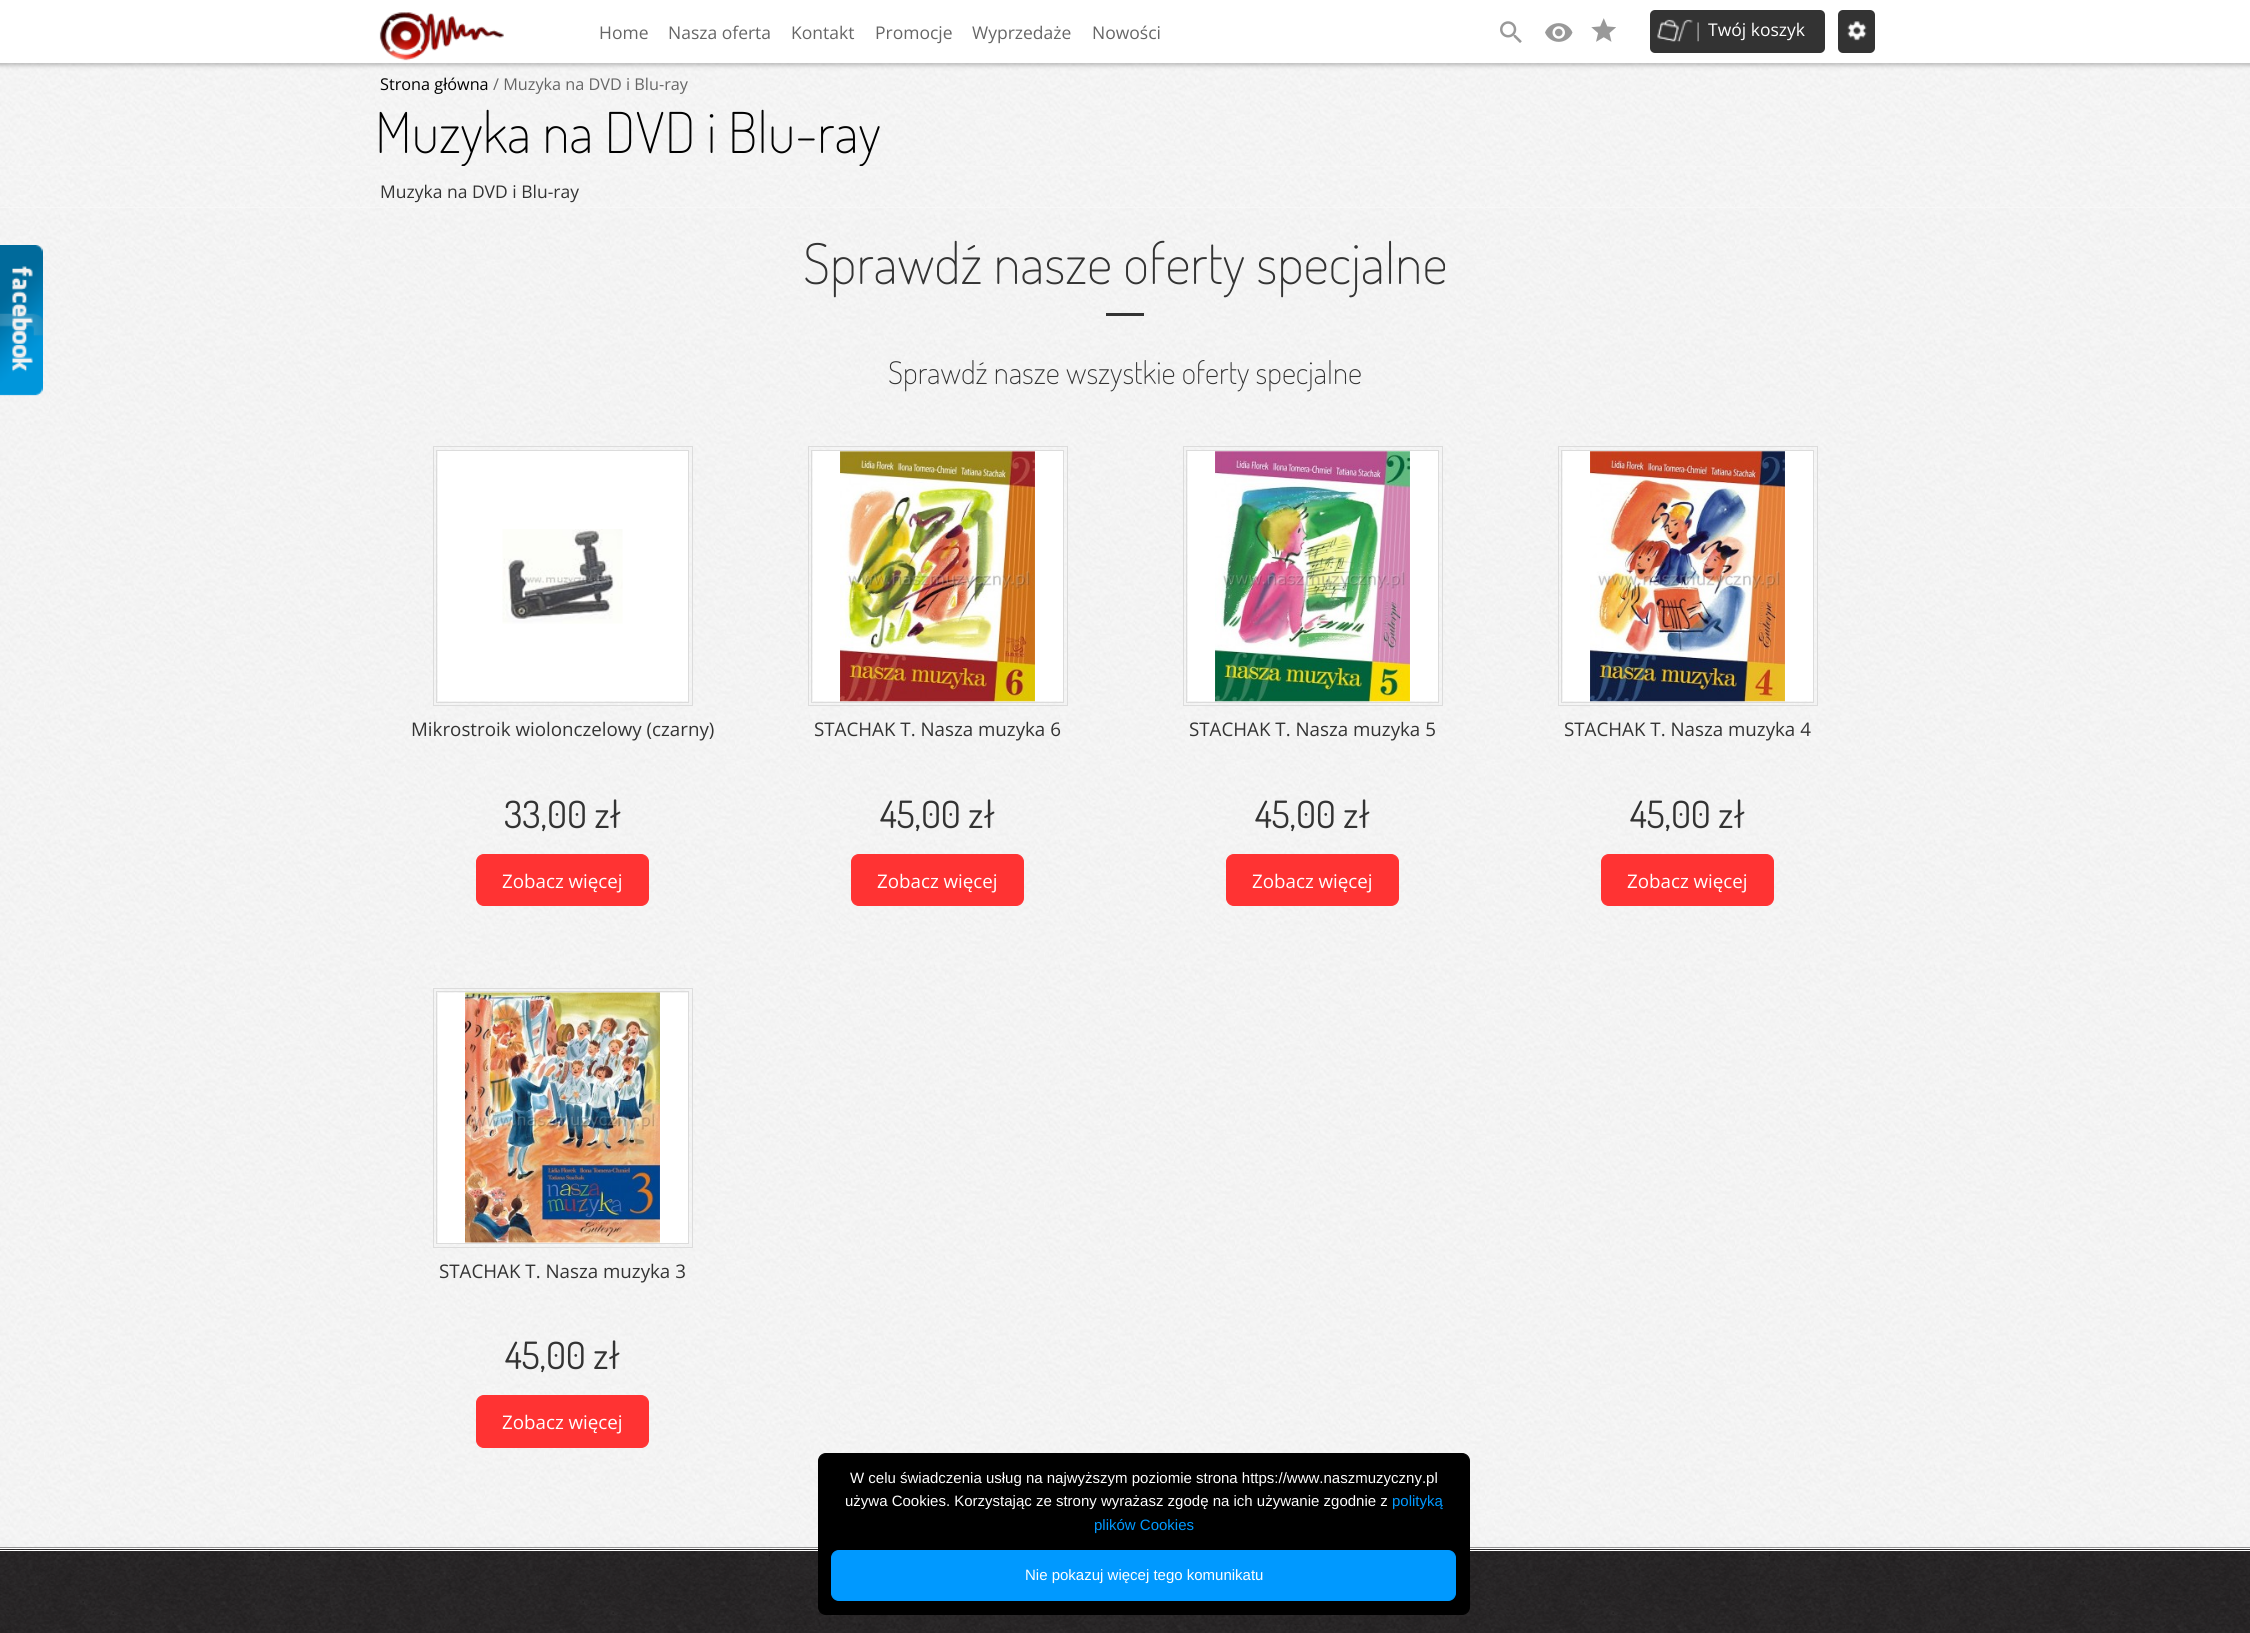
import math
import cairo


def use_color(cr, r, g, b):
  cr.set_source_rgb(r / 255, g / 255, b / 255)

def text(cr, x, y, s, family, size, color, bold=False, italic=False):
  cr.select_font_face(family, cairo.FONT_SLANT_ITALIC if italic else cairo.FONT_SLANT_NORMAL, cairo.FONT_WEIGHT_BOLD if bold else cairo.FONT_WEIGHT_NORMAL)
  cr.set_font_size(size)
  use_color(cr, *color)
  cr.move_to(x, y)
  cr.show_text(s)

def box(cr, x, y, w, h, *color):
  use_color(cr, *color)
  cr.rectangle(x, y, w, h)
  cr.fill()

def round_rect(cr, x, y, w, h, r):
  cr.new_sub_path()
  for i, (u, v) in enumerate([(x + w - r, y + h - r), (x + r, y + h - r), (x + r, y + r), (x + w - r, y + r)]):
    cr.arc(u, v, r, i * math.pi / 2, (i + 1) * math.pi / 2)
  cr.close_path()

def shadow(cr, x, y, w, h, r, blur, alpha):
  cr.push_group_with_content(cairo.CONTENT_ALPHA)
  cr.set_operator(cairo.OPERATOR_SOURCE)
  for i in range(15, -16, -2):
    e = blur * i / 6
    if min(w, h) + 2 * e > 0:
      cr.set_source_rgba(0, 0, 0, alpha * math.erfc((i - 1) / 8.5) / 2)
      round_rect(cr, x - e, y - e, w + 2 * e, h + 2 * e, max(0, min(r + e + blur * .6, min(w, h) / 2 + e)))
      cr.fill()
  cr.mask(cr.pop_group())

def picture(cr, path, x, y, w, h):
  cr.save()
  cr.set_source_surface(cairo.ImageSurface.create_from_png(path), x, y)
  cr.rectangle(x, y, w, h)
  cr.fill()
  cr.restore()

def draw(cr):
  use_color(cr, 250, 250, 250)
  cr.paint()
  picture(cr, "img_10.png", 0, 208, 2250, 1340)
  picture(cr, "img_01.png", 0, 245, 43, 151)
  picture(cr, "img_08.png", 0, 63, 2250, 103)
  use_color(cr, 56, 55, 56)
  shadow(cr, -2, -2, 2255, 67, 0, 2.5, 0.35)
  box(cr, 0, 0, 2250, 63, 255, 255, 255)
  picture(cr, "img_02.png", 379, 12, 125, 49)
  picture(cr, "img_03.png", 1500, 21, 22, 22)
  picture(cr, "img_04.png", 1545, 23, 28, 19)
  picture(cr, "img_05.png", 1591, 18, 25, 24)
  use_color(cr, 51, 51, 51)
  round_rect(cr, 1650, 10, 175, 43, 5)
  cr.fill()
  picture(cr, "img_06.png", 1657, 19, 42, 23)
  round_rect(cr, 1838, 10, 37, 43, 5)
  cr.fill()
  picture(cr, "img_07.png", 1847, 21, 20, 20)
  picture(cr, "img_09.png", 0, 166, 2250, 42)
  box(cr, 1106, 313, 38, 3, 51, 51, 51)
  cr.rectangle(433.5, 446.5, 259, 259)
  use_color(cr, 220, 220, 220)
  cr.set_line_width(1)
  cr.stroke()
  cr.rectangle(436.5, 450.5, 252, 252)
  cr.stroke()
  box(cr, 438, 451, 250, 250, 255, 255, 255)
  picture(cr, "img_11.png", 502, 529, 121, 95)
  use_color(cr, 255, 51, 51)
  round_rect(cr, 476.5, 854.5, 172, 51, 7.5)
  cr.fill_preserve()
  cr.stroke()
  cr.rectangle(808.5, 446.5, 259, 259)
  use_color(cr, 220, 220, 220)
  cr.stroke()
  cr.rectangle(811.5, 450.5, 252, 252)
  cr.stroke()
  box(cr, 813, 451, 250, 250, 255, 255, 255)
  picture(cr, "img_12.png", 840, 451, 195, 251)
  use_color(cr, 255, 51, 51)
  round_rect(cr, 851.5, 854.5, 172, 51, 7.5)
  cr.fill_preserve()
  cr.stroke()
  cr.rectangle(1183.5, 446.5, 259, 259)
  use_color(cr, 220, 220, 220)
  cr.stroke()
  cr.rectangle(1186.5, 450.5, 252, 252)
  cr.stroke()
  box(cr, 1188, 451, 250, 250, 255, 255, 255)
  picture(cr, "img_13.png", 1215, 451, 195, 251)
  use_color(cr, 255, 51, 51)
  round_rect(cr, 1226.5, 854.5, 172, 51, 7.5)
  cr.fill_preserve()
  cr.stroke()
  cr.rectangle(1558.5, 446.5, 259, 259)
  use_color(cr, 220, 220, 220)
  cr.stroke()
  cr.rectangle(1561.5, 450.5, 252, 252)
  cr.stroke()
  box(cr, 1563, 451, 250, 250, 255, 255, 255)
  picture(cr, "img_14.png", 1590, 451, 195, 251)
  use_color(cr, 255, 51, 51)
  round_rect(cr, 1601.5, 854.5, 172, 51, 7.5)
  cr.fill_preserve()
  cr.stroke()
  cr.rectangle(433.5, 988.5, 259, 259)
  use_color(cr, 220, 220, 220)
  cr.stroke()
  cr.rectangle(436.5, 991.5, 252, 252)
  cr.stroke()
  box(cr, 438, 993, 250, 250, 255, 255, 255)
  picture(cr, "img_15.png", 465, 992, 195, 251)
  use_color(cr, 255, 51, 51)
  round_rect(cr, 476.5, 1395.5, 172, 52, 7.5)
  cr.fill_preserve()
  cr.stroke()
  picture(cr, "img_16.png", 0, 1547, 2250, 86)
  box(cr, 0, 1548, 2250, 1, 255, 255, 255)
  box(cr, 0, 1550, 2250, 1, 255, 255, 255)
  use_color(cr, 0, 0, 0)
  round_rect(cr, 818.5, 1453.5, 651, 161, 7.5)
  cr.fill_preserve()
  cr.stroke()
  use_color(cr, 0, 153, 255)
  round_rect(cr, 831.5, 1550.5, 624, 50, 7.5)
  cr.fill_preserve()
  cr.stroke()
  text(cr, 599, 39, "Home", "Open Sans", 17.5, (102, 102, 102))
  text(cr, 668, 39, "Nasza oferta", "Open Sans", 17.5, (102, 102, 102))
  text(cr, 791, 39, "Kontakt", "Open Sans", 17.5, (102, 102, 102))
  text(cr, 875, 39, "Promocje", "Open Sans", 17.5, (102, 102, 102))
  text(cr, 972, 39, "Wyprzedaże", "Open Sans", 17.5, (102, 102, 102))
  text(cr, 1092, 39, "Nowości", "Open Sans", 17.5, (102, 102, 102))
  text(cr, 1708, 36, "Twój koszyk", "Open Sans", 17.5, (255, 255, 255))
  text(cr, 380, 90, "Strona główna", "Open Sans", 16.25, (0, 0, 0))
  text(cr, 493, 90, "/ Muzyka na DVD i Blu-ray", "Open Sans", 16.25, (102, 102, 102))
  cr.save()
  cr.rectangle(0, 63, 2250, 103)
  cr.clip()
  text(cr, 375, 153, "Muzyka na DVD i Blu-ray", "Dosis ExtraLight", 56.25, (0, 0, 0))
  cr.restore()
  text(cr, 380, 198, "Muzyka na DVD i Blu-ray", "Open Sans", 17.5, (51, 51, 51))
  text(cr, 803, 284, "Sprawdź nasze oferty specjalne", "Dosis ExtraLight", 56.25, (51, 51, 51))
  text(cr, 888, 384, "Sprawdź nasze wszystkie oferty specjalne", "Dosis ExtraLight", 31.25, (51, 51, 51))
  text(cr, 411, 736, "Mikrostroik wiolonczelowy (czarny)", "Open Sans", 18.75, (51, 51, 51))
  text(cr, 504, 828, "33,00 zł", "Dosis", 37.5, (51, 51, 51))
  text(cr, 502, 888, "Zobacz więcej", "Open Sans", 18.75, (255, 255, 255))
  text(cr, 814, 736, "STACHAK T. Nasza muzyka 6", "Open Sans", 18.75, (51, 51, 51))
  text(cr, 880, 828, "45,00 zł", "Dosis", 37.5, (51, 51, 51))
  text(cr, 877, 888, "Zobacz więcej", "Open Sans", 18.75, (255, 255, 255))
  text(cr, 1189, 736, "STACHAK T. Nasza muzyka 5", "Open Sans", 18.75, (51, 51, 51))
  text(cr, 1255, 828, "45,00 zł", "Dosis", 37.5, (51, 51, 51))
  text(cr, 1252, 888, "Zobacz więcej", "Open Sans", 18.75, (255, 255, 255))
  text(cr, 1564, 736, "STACHAK T. Nasza muzyka 4", "Open Sans", 18.75, (51, 51, 51))
  text(cr, 1630, 828, "45,00 zł", "Dosis", 37.5, (51, 51, 51))
  text(cr, 1627, 888, "Zobacz więcej", "Open Sans", 18.75, (255, 255, 255))
  text(cr, 439, 1278, "STACHAK T. Nasza muzyka 3", "Open Sans", 18.75, (51, 51, 51))
  text(cr, 505, 1369, "45,00 zł", "Dosis", 37.5, (51, 51, 51))
  text(cr, 502, 1429, "Zobacz więcej", "Open Sans", 18.75, (255, 255, 255))
  text(cr, 850, 1483, "W celu świadczenia usług na najwyższym poziomie strona https://www.naszmuzyczny.pl", "Liberation Sans", 15, (255, 255, 255))
  text(cr, 845, 1506, "używa Cookies. Korzystając ze strony wyrażasz zgodę na ich używanie zgodnie z", "Liberation Sans", 15, (255, 255, 255))
  text(cr, 1392, 1506, "polityką", "Liberation Sans", 15, (0, 153, 255))
  text(cr, 1094, 1530, "plików Cookies", "Liberation Sans", 15, (0, 153, 255))
  text(cr, 1025, 1580, "Nie pokazuj więcej tego komunikatu", "Liberation Sans", 15, (255, 255, 255))


surface = cairo.ImageSurface(cairo.FORMAT_RGB24, 2250, 1633)
cr = cairo.Context(surface)
options = cairo.FontOptions()
options.set_hint_metrics(cairo.HINT_METRICS_OFF)
options.set_hint_style(cairo.HINT_STYLE_NONE)
cr.set_font_options(options)
cr.set_miter_limit(4)
draw(cr)
surface.write_to_png("out.png")
